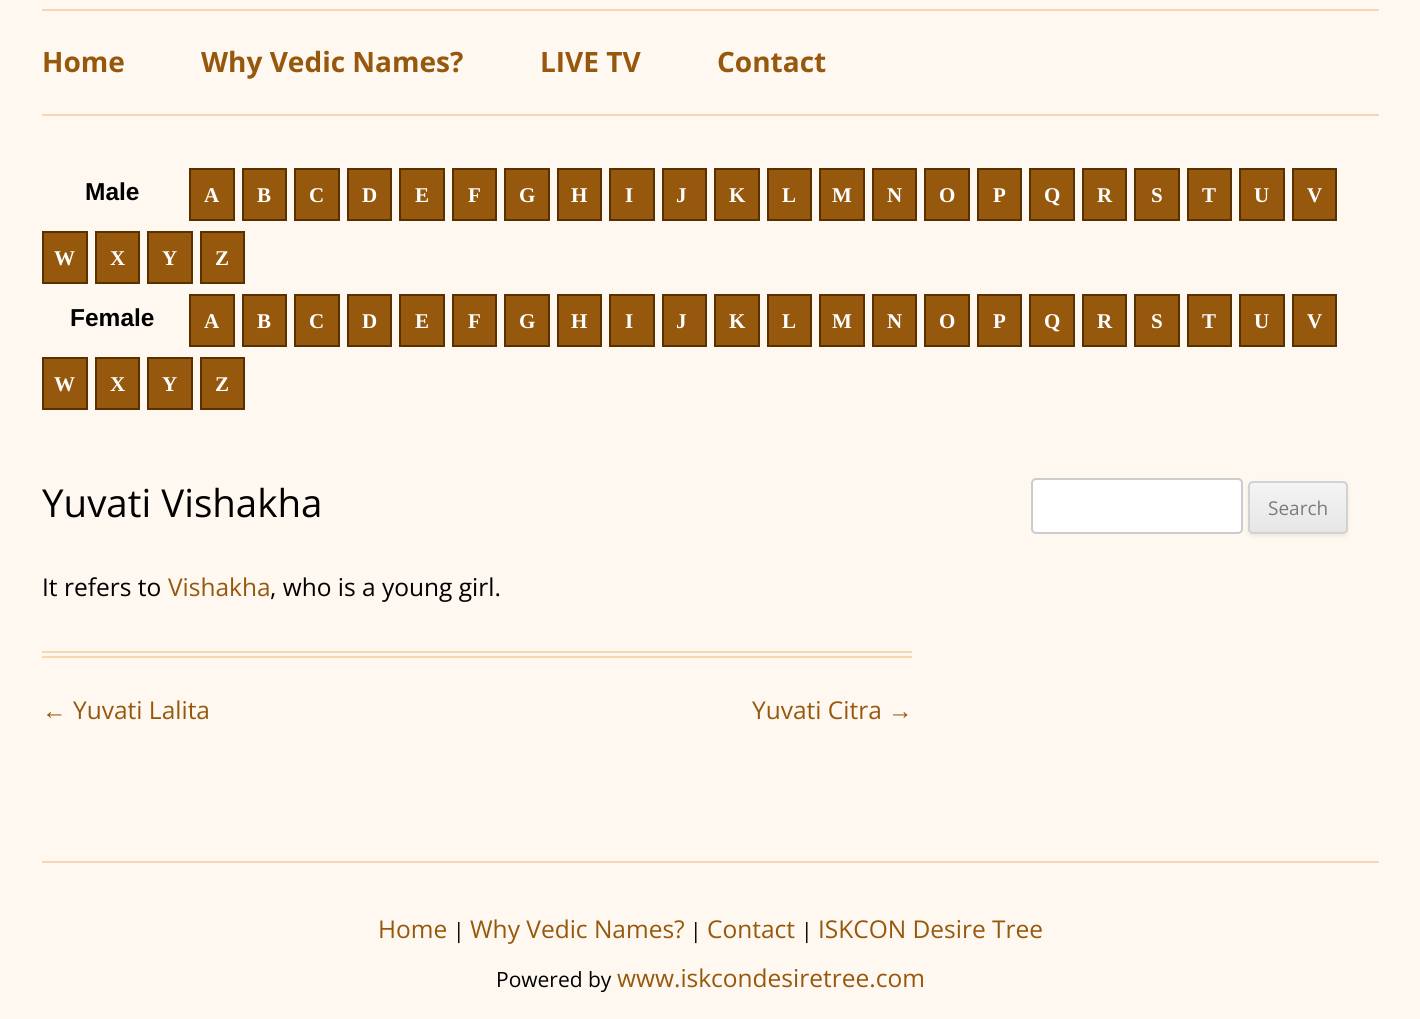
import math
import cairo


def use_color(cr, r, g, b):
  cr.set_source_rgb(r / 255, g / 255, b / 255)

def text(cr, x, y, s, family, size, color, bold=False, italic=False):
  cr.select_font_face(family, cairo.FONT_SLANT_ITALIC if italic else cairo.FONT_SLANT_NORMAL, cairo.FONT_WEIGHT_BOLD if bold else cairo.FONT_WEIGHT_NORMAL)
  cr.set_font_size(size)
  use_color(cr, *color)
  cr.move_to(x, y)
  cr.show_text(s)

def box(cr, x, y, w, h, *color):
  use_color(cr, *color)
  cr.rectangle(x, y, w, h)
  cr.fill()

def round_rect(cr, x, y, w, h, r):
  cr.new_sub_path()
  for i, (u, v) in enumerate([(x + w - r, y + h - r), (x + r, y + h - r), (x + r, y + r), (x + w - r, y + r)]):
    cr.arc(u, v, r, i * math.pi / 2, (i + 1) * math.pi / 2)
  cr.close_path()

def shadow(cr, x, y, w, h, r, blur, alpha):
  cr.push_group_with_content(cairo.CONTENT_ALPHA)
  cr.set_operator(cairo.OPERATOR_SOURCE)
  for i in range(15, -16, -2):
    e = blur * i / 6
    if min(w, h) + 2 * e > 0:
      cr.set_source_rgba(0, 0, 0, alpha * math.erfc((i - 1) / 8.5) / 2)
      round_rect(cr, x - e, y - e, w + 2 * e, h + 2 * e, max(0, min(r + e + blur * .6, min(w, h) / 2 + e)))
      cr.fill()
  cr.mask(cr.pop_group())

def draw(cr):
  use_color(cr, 255, 248, 240)
  cr.paint()
  box(cr, 42, 9, 1337, 2, 245, 215, 180)
  box(cr, 42, 114, 1337, 2, 245, 215, 180)
  use_color(cr, 150, 88, 13)
  cr.rectangle(190, 169, 44, 51)
  cr.fill_preserve()
  use_color(cr, 89, 48, 0)
  cr.stroke()
  use_color(cr, 150, 88, 13)
  cr.rectangle(243, 169, 43, 51)
  cr.fill_preserve()
  use_color(cr, 89, 48, 0)
  cr.stroke()
  use_color(cr, 150, 88, 13)
  cr.rectangle(295, 169, 44, 51)
  cr.fill_preserve()
  use_color(cr, 89, 48, 0)
  cr.stroke()
  use_color(cr, 150, 88, 13)
  cr.rectangle(348, 169, 43, 51)
  cr.fill_preserve()
  use_color(cr, 89, 48, 0)
  cr.stroke()
  use_color(cr, 150, 88, 13)
  cr.rectangle(400, 169, 44, 51)
  cr.fill_preserve()
  use_color(cr, 89, 48, 0)
  cr.stroke()
  use_color(cr, 150, 88, 13)
  cr.rectangle(453, 169, 43, 51)
  cr.fill_preserve()
  use_color(cr, 89, 48, 0)
  cr.stroke()
  use_color(cr, 150, 88, 13)
  cr.rectangle(505, 169, 44, 51)
  cr.fill_preserve()
  use_color(cr, 89, 48, 0)
  cr.stroke()
  use_color(cr, 150, 88, 13)
  cr.rectangle(558, 169, 43, 51)
  cr.fill_preserve()
  use_color(cr, 89, 48, 0)
  cr.stroke()
  use_color(cr, 150, 88, 13)
  cr.rectangle(610, 169, 44, 51)
  cr.fill_preserve()
  use_color(cr, 89, 48, 0)
  cr.stroke()
  use_color(cr, 150, 88, 13)
  cr.rectangle(663, 169, 43, 51)
  cr.fill_preserve()
  use_color(cr, 89, 48, 0)
  cr.stroke()
  use_color(cr, 150, 88, 13)
  cr.rectangle(715, 169, 44, 51)
  cr.fill_preserve()
  use_color(cr, 89, 48, 0)
  cr.stroke()
  use_color(cr, 150, 88, 13)
  cr.rectangle(768, 169, 43, 51)
  cr.fill_preserve()
  use_color(cr, 89, 48, 0)
  cr.stroke()
  use_color(cr, 150, 88, 13)
  cr.rectangle(820, 169, 44, 51)
  cr.fill_preserve()
  use_color(cr, 89, 48, 0)
  cr.stroke()
  use_color(cr, 150, 88, 13)
  cr.rectangle(873, 169, 43, 51)
  cr.fill_preserve()
  use_color(cr, 89, 48, 0)
  cr.stroke()
  use_color(cr, 150, 88, 13)
  cr.rectangle(925, 169, 44, 51)
  cr.fill_preserve()
  use_color(cr, 89, 48, 0)
  cr.stroke()
  use_color(cr, 150, 88, 13)
  cr.rectangle(978, 169, 43, 51)
  cr.fill_preserve()
  use_color(cr, 89, 48, 0)
  cr.stroke()
  use_color(cr, 150, 88, 13)
  cr.rectangle(1030, 169, 44, 51)
  cr.fill_preserve()
  use_color(cr, 89, 48, 0)
  cr.stroke()
  use_color(cr, 150, 88, 13)
  cr.rectangle(1083, 169, 43, 51)
  cr.fill_preserve()
  use_color(cr, 89, 48, 0)
  cr.stroke()
  use_color(cr, 150, 88, 13)
  cr.rectangle(1135, 169, 44, 51)
  cr.fill_preserve()
  use_color(cr, 89, 48, 0)
  cr.stroke()
  use_color(cr, 150, 88, 13)
  cr.rectangle(1188, 169, 43, 51)
  cr.fill_preserve()
  use_color(cr, 89, 48, 0)
  cr.stroke()
  use_color(cr, 150, 88, 13)
  cr.rectangle(1240, 169, 44, 51)
  cr.fill_preserve()
  use_color(cr, 89, 48, 0)
  cr.stroke()
  use_color(cr, 150, 88, 13)
  cr.rectangle(1293, 169, 43, 51)
  cr.fill_preserve()
  use_color(cr, 89, 48, 0)
  cr.stroke()
  use_color(cr, 150, 88, 13)
  cr.rectangle(43, 232, 44, 51)
  cr.fill_preserve()
  use_color(cr, 89, 48, 0)
  cr.stroke()
  use_color(cr, 150, 88, 13)
  cr.rectangle(96, 232, 43, 51)
  cr.fill_preserve()
  use_color(cr, 89, 48, 0)
  cr.stroke()
  use_color(cr, 150, 88, 13)
  cr.rectangle(148, 232, 44, 51)
  cr.fill_preserve()
  use_color(cr, 89, 48, 0)
  cr.stroke()
  use_color(cr, 150, 88, 13)
  cr.rectangle(201, 232, 43, 51)
  cr.fill_preserve()
  use_color(cr, 89, 48, 0)
  cr.stroke()
  use_color(cr, 150, 88, 13)
  cr.rectangle(190, 295, 44, 51)
  cr.fill_preserve()
  use_color(cr, 89, 48, 0)
  cr.stroke()
  use_color(cr, 150, 88, 13)
  cr.rectangle(243, 295, 43, 51)
  cr.fill_preserve()
  use_color(cr, 89, 48, 0)
  cr.stroke()
  use_color(cr, 150, 88, 13)
  cr.rectangle(295, 295, 44, 51)
  cr.fill_preserve()
  use_color(cr, 89, 48, 0)
  cr.stroke()
  use_color(cr, 150, 88, 13)
  cr.rectangle(348, 295, 43, 51)
  cr.fill_preserve()
  use_color(cr, 89, 48, 0)
  cr.stroke()
  use_color(cr, 150, 88, 13)
  cr.rectangle(400, 295, 44, 51)
  cr.fill_preserve()
  use_color(cr, 89, 48, 0)
  cr.stroke()
  use_color(cr, 150, 88, 13)
  cr.rectangle(453, 295, 43, 51)
  cr.fill_preserve()
  use_color(cr, 89, 48, 0)
  cr.stroke()
  use_color(cr, 150, 88, 13)
  cr.rectangle(505, 295, 44, 51)
  cr.fill_preserve()
  use_color(cr, 89, 48, 0)
  cr.stroke()
  use_color(cr, 150, 88, 13)
  cr.rectangle(558, 295, 43, 51)
  cr.fill_preserve()
  use_color(cr, 89, 48, 0)
  cr.stroke()
  use_color(cr, 150, 88, 13)
  cr.rectangle(610, 295, 44, 51)
  cr.fill_preserve()
  use_color(cr, 89, 48, 0)
  cr.stroke()
  use_color(cr, 150, 88, 13)
  cr.rectangle(663, 295, 43, 51)
  cr.fill_preserve()
  use_color(cr, 89, 48, 0)
  cr.stroke()
  use_color(cr, 150, 88, 13)
  cr.rectangle(715, 295, 44, 51)
  cr.fill_preserve()
  use_color(cr, 89, 48, 0)
  cr.stroke()
  use_color(cr, 150, 88, 13)
  cr.rectangle(768, 295, 43, 51)
  cr.fill_preserve()
  use_color(cr, 89, 48, 0)
  cr.stroke()
  use_color(cr, 150, 88, 13)
  cr.rectangle(820, 295, 44, 51)
  cr.fill_preserve()
  use_color(cr, 89, 48, 0)
  cr.stroke()
  use_color(cr, 150, 88, 13)
  cr.rectangle(873, 295, 43, 51)
  cr.fill_preserve()
  use_color(cr, 89, 48, 0)
  cr.stroke()
  use_color(cr, 150, 88, 13)
  cr.rectangle(925, 295, 44, 51)
  cr.fill_preserve()
  use_color(cr, 89, 48, 0)
  cr.stroke()
  use_color(cr, 150, 88, 13)
  cr.rectangle(978, 295, 43, 51)
  cr.fill_preserve()
  use_color(cr, 89, 48, 0)
  cr.stroke()
  use_color(cr, 150, 88, 13)
  cr.rectangle(1030, 295, 44, 51)
  cr.fill_preserve()
  use_color(cr, 89, 48, 0)
  cr.stroke()
  use_color(cr, 150, 88, 13)
  cr.rectangle(1083, 295, 43, 51)
  cr.fill_preserve()
  use_color(cr, 89, 48, 0)
  cr.stroke()
  use_color(cr, 150, 88, 13)
  cr.rectangle(1135, 295, 44, 51)
  cr.fill_preserve()
  use_color(cr, 89, 48, 0)
  cr.stroke()
  use_color(cr, 150, 88, 13)
  cr.rectangle(1188, 295, 43, 51)
  cr.fill_preserve()
  use_color(cr, 89, 48, 0)
  cr.stroke()
  use_color(cr, 150, 88, 13)
  cr.rectangle(1240, 295, 44, 51)
  cr.fill_preserve()
  use_color(cr, 89, 48, 0)
  cr.stroke()
  use_color(cr, 150, 88, 13)
  cr.rectangle(1293, 295, 43, 51)
  cr.fill_preserve()
  use_color(cr, 89, 48, 0)
  cr.stroke()
  use_color(cr, 150, 88, 13)
  cr.rectangle(43, 358, 44, 51)
  cr.fill_preserve()
  use_color(cr, 89, 48, 0)
  cr.stroke()
  use_color(cr, 150, 88, 13)
  cr.rectangle(96, 358, 43, 51)
  cr.fill_preserve()
  use_color(cr, 89, 48, 0)
  cr.stroke()
  use_color(cr, 150, 88, 13)
  cr.rectangle(148, 358, 44, 51)
  cr.fill_preserve()
  use_color(cr, 89, 48, 0)
  cr.stroke()
  use_color(cr, 150, 88, 13)
  cr.rectangle(201, 358, 43, 51)
  cr.fill_preserve()
  use_color(cr, 89, 48, 0)
  cr.stroke()
  box(cr, 42, 651, 870, 2, 245, 215, 180)
  box(cr, 42, 656, 870, 2, 245, 215, 180)
  use_color(cr, 255, 255, 255)
  round_rect(cr, 1032, 479, 210, 54, 4)
  cr.fill_preserve()
  use_color(cr, 204, 204, 204)
  cr.stroke()
  use_color(cr, 64, 64, 64)
  shadow(cr, 1248, 483, 100, 53, 5, 2, 0.1)
  cr.save()
  round_rect(cr, 1248, 481, 100, 53, 5)
  cr.clip()
  gradient = cairo.LinearGradient(1298, 483, 1298, 532)
  gradient.add_color_stop_rgba(0, 0.957, 0.957, 0.957, 1)
  gradient.add_color_stop_rgba(1, 0.902, 0.902, 0.902, 1)
  cr.set_source(gradient)
  cr.rectangle(1248, 483, 100, 49)
  cr.fill()
  cr.restore()
  round_rect(cr, 1249, 482, 98, 51, 4)
  use_color(cr, 210, 210, 210)
  cr.stroke()
  box(cr, 42, 861, 1337, 2, 245, 215, 180)
  text(cr, 42, 72, "Home", "Open Sans", 28, (150, 88, 13), bold=True)
  text(cr, 201, 72, "Why Vedic Names?", "Open Sans", 28, (150, 88, 13), bold=True)
  text(cr, 540, 72, "LIVE TV", "Open Sans", 28, (150, 88, 13), bold=True)
  text(cr, 717, 72, "Contact", "Open Sans", 28, (150, 88, 13), bold=True)
  text(cr, 85, 200, "Male", "Liberation Sans", 24.5, (0, 0, 0), bold=True)
  text(cr, 204, 202, "A", "Liberation Serif", 21, (255, 255, 255), bold=True)
  text(cr, 257, 202, "B", "Liberation Serif", 21, (255, 255, 255), bold=True)
  text(cr, 309, 202, "C", "Liberation Serif", 21, (255, 255, 255), bold=True)
  text(cr, 362, 202, "D", "Liberation Serif", 21, (255, 255, 255), bold=True)
  text(cr, 415, 202, "E", "Liberation Serif", 21, (255, 255, 255), bold=True)
  text(cr, 468, 202, "F", "Liberation Serif", 21, (255, 255, 255), bold=True)
  text(cr, 519, 202, "G", "Liberation Serif", 21, (255, 255, 255), bold=True)
  text(cr, 571, 202, "H", "Liberation Serif", 21, (255, 255, 255), bold=True)
  text(cr, 625, 202, "I", "Liberation Serif", 21, (255, 255, 255), bold=True)
  text(cr, 676, 202, "J", "Liberation Serif", 21, (255, 255, 255), bold=True)
  text(cr, 729, 202, "K", "Liberation Serif", 21, (255, 255, 255), bold=True)
  text(cr, 782, 202, "L", "Liberation Serif", 21, (255, 255, 255), bold=True)
  text(cr, 832, 202, "M", "Liberation Serif", 21, (255, 255, 255), bold=True)
  text(cr, 887, 202, "N", "Liberation Serif", 21, (255, 255, 255), bold=True)
  text(cr, 939, 202, "O", "Liberation Serif", 21, (255, 255, 255), bold=True)
  text(cr, 993, 202, "P", "Liberation Serif", 21, (255, 255, 255), bold=True)
  text(cr, 1044, 202, "Q", "Liberation Serif", 21, (255, 255, 255), bold=True)
  text(cr, 1097, 202, "R", "Liberation Serif", 21, (255, 255, 255), bold=True)
  text(cr, 1151, 202, "S", "Liberation Serif", 21, (255, 255, 255), bold=True)
  text(cr, 1202, 202, "T", "Liberation Serif", 21, (255, 255, 255), bold=True)
  text(cr, 1254, 202, "U", "Liberation Serif", 21, (255, 255, 255), bold=True)
  text(cr, 1307, 202, "V", "Liberation Serif", 21, (255, 255, 255), bold=True)
  text(cr, 54, 265, "W", "Liberation Serif", 21, (255, 255, 255), bold=True)
  text(cr, 110, 265, "X", "Liberation Serif", 21, (255, 255, 255), bold=True)
  text(cr, 162, 265, "Y", "Liberation Serif", 21, (255, 255, 255), bold=True)
  text(cr, 215, 265, "Z", "Liberation Serif", 21, (255, 255, 255), bold=True)
  text(cr, 70, 326, "Female", "Liberation Sans", 24.5, (0, 0, 0), bold=True)
  text(cr, 204, 328, "A", "Liberation Serif", 21, (255, 255, 255), bold=True)
  text(cr, 257, 328, "B", "Liberation Serif", 21, (255, 255, 255), bold=True)
  text(cr, 309, 328, "C", "Liberation Serif", 21, (255, 255, 255), bold=True)
  text(cr, 362, 328, "D", "Liberation Serif", 21, (255, 255, 255), bold=True)
  text(cr, 415, 328, "E", "Liberation Serif", 21, (255, 255, 255), bold=True)
  text(cr, 468, 328, "F", "Liberation Serif", 21, (255, 255, 255), bold=True)
  text(cr, 519, 328, "G", "Liberation Serif", 21, (255, 255, 255), bold=True)
  text(cr, 571, 328, "H", "Liberation Serif", 21, (255, 255, 255), bold=True)
  text(cr, 625, 328, "I", "Liberation Serif", 21, (255, 255, 255), bold=True)
  text(cr, 676, 328, "J", "Liberation Serif", 21, (255, 255, 255), bold=True)
  text(cr, 729, 328, "K", "Liberation Serif", 21, (255, 255, 255), bold=True)
  text(cr, 782, 328, "L", "Liberation Serif", 21, (255, 255, 255), bold=True)
  text(cr, 832, 328, "M", "Liberation Serif", 21, (255, 255, 255), bold=True)
  text(cr, 887, 328, "N", "Liberation Serif", 21, (255, 255, 255), bold=True)
  text(cr, 939, 328, "O", "Liberation Serif", 21, (255, 255, 255), bold=True)
  text(cr, 993, 328, "P", "Liberation Serif", 21, (255, 255, 255), bold=True)
  text(cr, 1044, 328, "Q", "Liberation Serif", 21, (255, 255, 255), bold=True)
  text(cr, 1097, 328, "R", "Liberation Serif", 21, (255, 255, 255), bold=True)
  text(cr, 1151, 328, "S", "Liberation Serif", 21, (255, 255, 255), bold=True)
  text(cr, 1202, 328, "T", "Liberation Serif", 21, (255, 255, 255), bold=True)
  text(cr, 1254, 328, "U", "Liberation Serif", 21, (255, 255, 255), bold=True)
  text(cr, 1307, 328, "V", "Liberation Serif", 21, (255, 255, 255), bold=True)
  text(cr, 54, 391, "W", "Liberation Serif", 21, (255, 255, 255), bold=True)
  text(cr, 110, 391, "X", "Liberation Serif", 21, (255, 255, 255), bold=True)
  text(cr, 162, 391, "Y", "Liberation Serif", 21, (255, 255, 255), bold=True)
  text(cr, 215, 391, "Z", "Liberation Serif", 21, (255, 255, 255), bold=True)
  text(cr, 42, 517, "Yuvati Vishakha", "Open Sans", 38.5, (0, 0, 0))
  text(cr, 42, 596, "It refers to", "Open Sans", 24.5, (0, 0, 0))
  text(cr, 168, 596, "Vishakha", "Open Sans", 24.5, (150, 88, 13))
  text(cr, 270, 596, ", who is a young girl.", "Open Sans", 24.5, (0, 0, 0))
  text(cr, 42, 719, "←", "Liberation Sans", 24.5, (150, 88, 13))
  text(cr, 73, 719, "Yuvati Lalita", "Open Sans", 24.5, (150, 88, 13))
  text(cr, 752, 719, "Yuvati Citra", "Open Sans", 24.5, (150, 88, 13))
  text(cr, 888, 719, "→", "Liberation Sans", 24.5, (150, 88, 13))
  text(cr, 1268, 515, "Search", "Open Sans", 19, (124, 124, 124))
  text(cr, 378, 938, "Home", "Open Sans", 24.5, (150, 88, 13))
  text(cr, 453, 938, "|", "Open Sans", 21, (0, 0, 0))
  text(cr, 470, 938, "Why Vedic Names?", "Open Sans", 24.5, (150, 88, 13))
  text(cr, 690, 938, "|", "Open Sans", 21, (0, 0, 0))
  text(cr, 707, 938, "Contact", "Open Sans", 24.5, (150, 88, 13))
  text(cr, 801, 938, "|", "Open Sans", 21, (0, 0, 0))
  text(cr, 818, 938, "ISKCON Desire Tree", "Open Sans", 24.5, (150, 88, 13))
  text(cr, 496, 987, "Powered by", "Open Sans", 21, (0, 0, 0))
  text(cr, 617, 987, "www.iskcondesiretree.com", "Open Sans", 24.5, (150, 88, 13))


surface = cairo.ImageSurface(cairo.FORMAT_RGB24, 1420, 1019)
cr = cairo.Context(surface)
options = cairo.FontOptions()
options.set_hint_metrics(cairo.HINT_METRICS_OFF)
options.set_hint_style(cairo.HINT_STYLE_NONE)
cr.set_font_options(options)
cr.set_miter_limit(4)
draw(cr)
surface.write_to_png("out.png")
